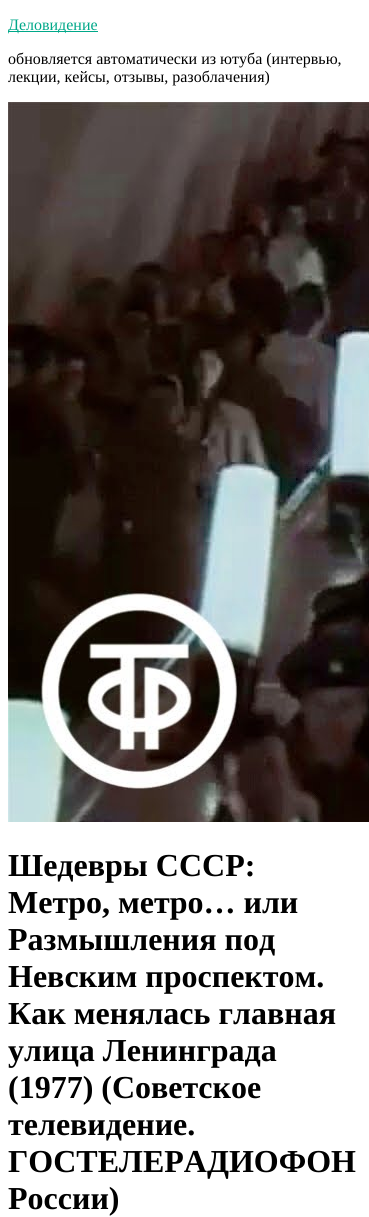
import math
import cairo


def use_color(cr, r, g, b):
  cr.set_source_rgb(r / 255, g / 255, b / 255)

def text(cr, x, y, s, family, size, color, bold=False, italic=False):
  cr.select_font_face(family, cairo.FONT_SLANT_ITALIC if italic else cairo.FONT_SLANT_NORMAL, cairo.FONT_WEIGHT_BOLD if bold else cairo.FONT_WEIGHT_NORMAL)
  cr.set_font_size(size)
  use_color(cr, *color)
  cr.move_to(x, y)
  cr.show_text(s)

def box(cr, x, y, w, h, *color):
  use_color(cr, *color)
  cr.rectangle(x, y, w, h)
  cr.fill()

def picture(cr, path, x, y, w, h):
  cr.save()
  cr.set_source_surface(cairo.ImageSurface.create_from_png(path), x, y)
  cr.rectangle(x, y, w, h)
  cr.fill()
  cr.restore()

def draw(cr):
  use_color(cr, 255, 255, 255)
  cr.paint()
  box(cr, 8, 31, 90, 1, 0, 168, 137)
  picture(cr, "img_01.png", 8, 102, 361, 720)
  text(cr, 8, 30, "Деловидение", "Liberation Serif", 16, (0, 168, 137))
  text(cr, 8, 64, "обновляется автоматически из ютуба (интервью,", "Liberation Serif", 16, (0, 0, 0))
  text(cr, 8, 82, "лекции, кейсы, отзывы, разоблачения)", "Liberation Serif", 16, (0, 0, 0))
  text(cr, 8, 876, "Шедевры СССР:", "Liberation Serif", 32, (0, 0, 0), bold=True)
  text(cr, 8, 913, "Метро, метро… или", "Liberation Serif", 32, (0, 0, 0), bold=True)
  text(cr, 8, 950, "Размышления под", "Liberation Serif", 32, (0, 0, 0), bold=True)
  text(cr, 8, 987, "Невским проспектом.", "Liberation Serif", 32, (0, 0, 0), bold=True)
  text(cr, 8, 1024, "Как менялась главная", "Liberation Serif", 32, (0, 0, 0), bold=True)
  text(cr, 8, 1061, "улица Ленинграда", "Liberation Serif", 32, (0, 0, 0), bold=True)
  text(cr, 8, 1098, "(1977) (Советское", "Liberation Serif", 32, (0, 0, 0), bold=True)
  text(cr, 8, 1135, "телевидение.", "Liberation Serif", 32, (0, 0, 0), bold=True)
  text(cr, 8, 1172, "ГОСТЕЛЕРАДИОФОН", "Liberation Serif", 32, (0, 0, 0), bold=True)
  text(cr, 8, 1209, "России)", "Liberation Serif", 32, (0, 0, 0), bold=True)


surface = cairo.ImageSurface(cairo.FORMAT_RGB24, 369, 1217)
cr = cairo.Context(surface)
options = cairo.FontOptions()
options.set_hint_metrics(cairo.HINT_METRICS_OFF)
options.set_hint_style(cairo.HINT_STYLE_NONE)
cr.set_font_options(options)
cr.set_miter_limit(4)
draw(cr)
surface.write_to_png("out.png")
